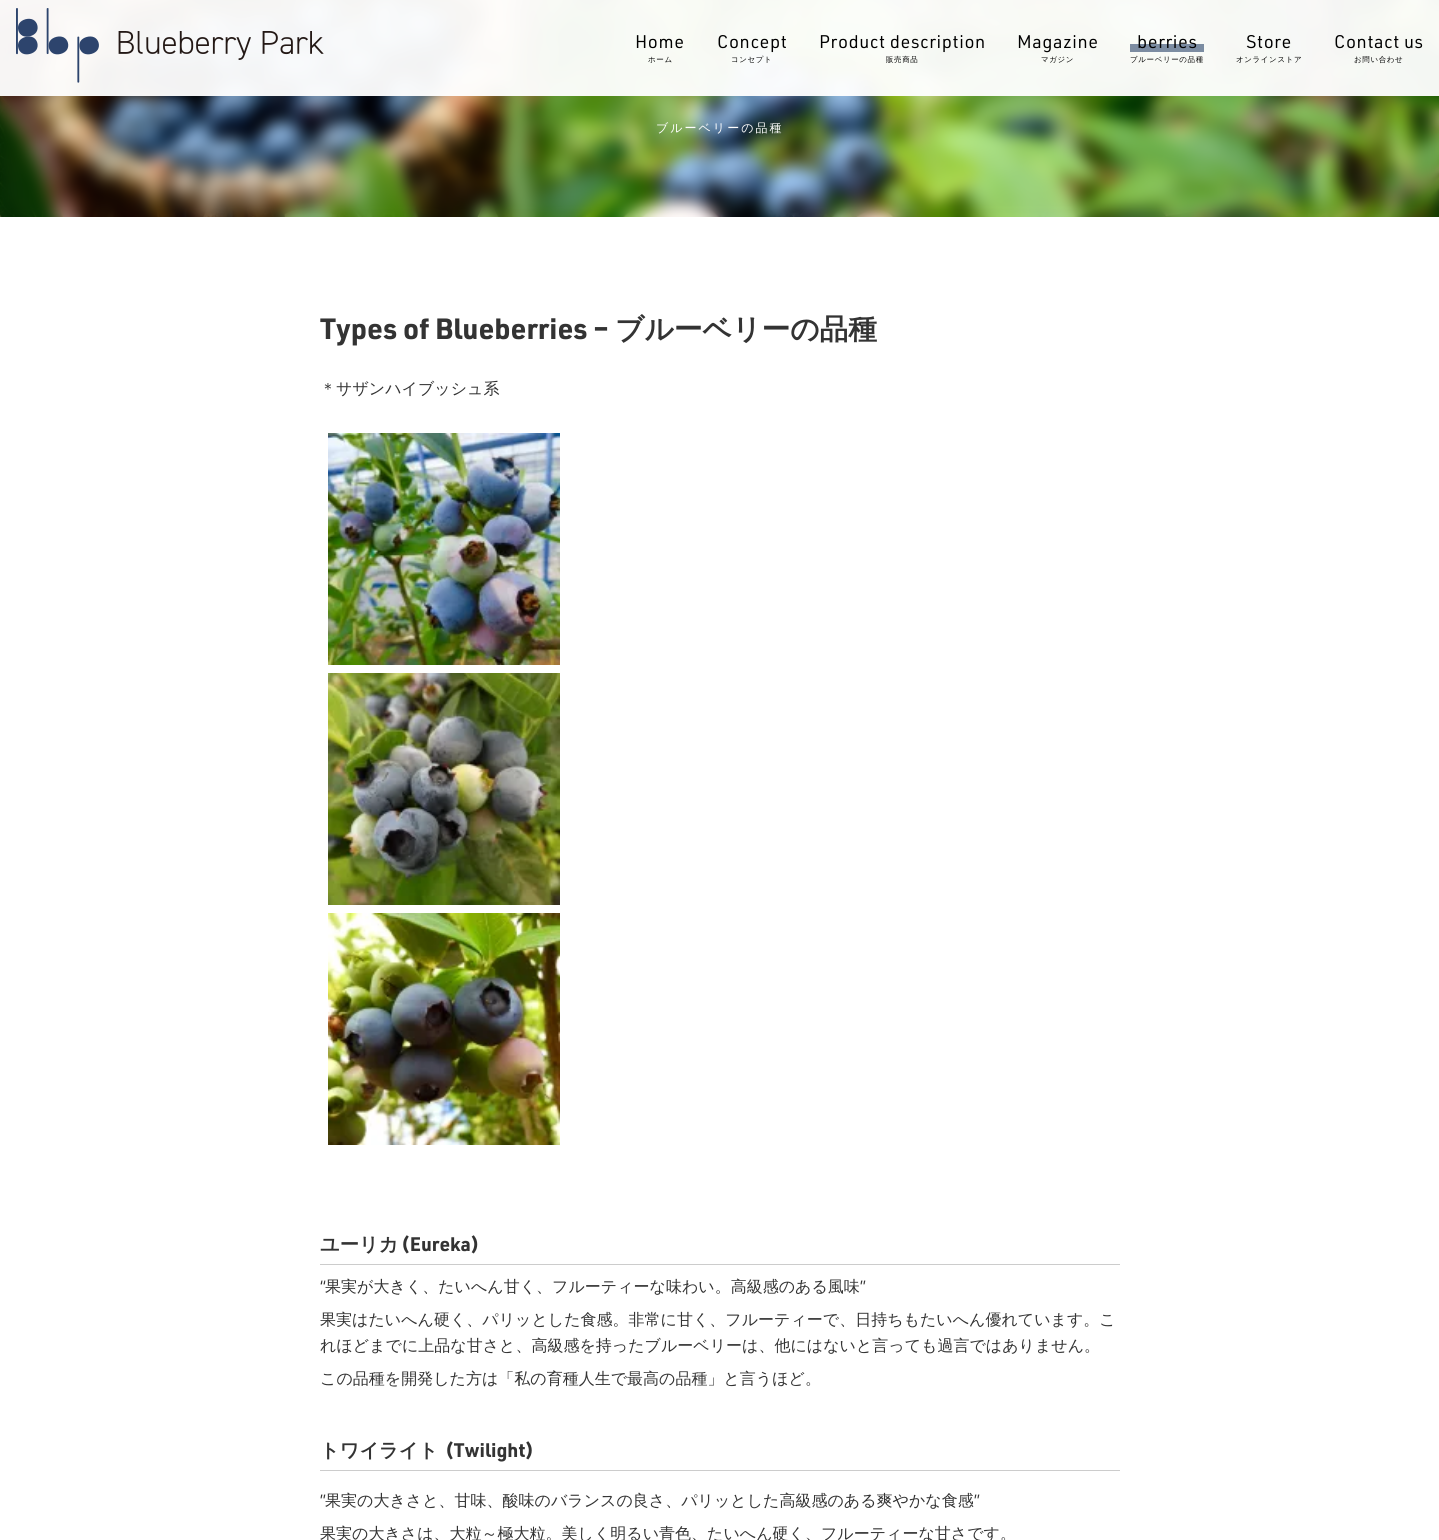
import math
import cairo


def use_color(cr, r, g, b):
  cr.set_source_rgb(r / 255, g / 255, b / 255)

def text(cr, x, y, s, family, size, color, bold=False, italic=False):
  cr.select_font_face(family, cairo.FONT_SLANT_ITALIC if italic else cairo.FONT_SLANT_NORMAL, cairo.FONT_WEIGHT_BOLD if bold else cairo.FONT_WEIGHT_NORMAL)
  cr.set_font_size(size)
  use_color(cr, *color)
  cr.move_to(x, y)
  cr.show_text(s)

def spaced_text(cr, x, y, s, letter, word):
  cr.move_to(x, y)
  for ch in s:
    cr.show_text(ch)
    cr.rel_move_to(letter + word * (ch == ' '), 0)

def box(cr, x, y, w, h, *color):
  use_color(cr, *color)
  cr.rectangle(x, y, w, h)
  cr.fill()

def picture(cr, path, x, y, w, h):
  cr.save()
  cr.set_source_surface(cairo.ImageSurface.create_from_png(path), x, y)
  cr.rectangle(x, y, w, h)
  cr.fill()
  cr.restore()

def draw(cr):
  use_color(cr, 255, 255, 255)
  cr.paint()
  picture(cr, "img_02.png", 0, 0, 1439, 217)
  picture(cr, "img_03.png", 0, 0, 1439, 217)
  cr.set_source_rgba(1, 1, 1, 0.95)
  cr.rectangle(0, 0, 1439, 96)
  cr.fill()
  picture(cr, "img_01.png", 16, 8, 308, 75)
  cr.set_source_rgba(0.161, 0.263, 0.416, 0.6)
  cr.rectangle(1130, 44, 74, 8)
  cr.fill()
  picture(cr, "img_04.png", 328, 433, 232, 232)
  picture(cr, "img_05.png", 328, 673, 232, 232)
  picture(cr, "img_06.png", 328, 913, 232, 232)
  box(cr, 320, 1264, 800, 1, 204, 204, 204)
  box(cr, 320, 1470, 800, 1, 204, 204, 204)
  cr.select_font_face("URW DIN")
  cr.set_font_size(18)
  use_color(cr, 0, 0, 0)
  spaced_text(cr, 635, 48, "Home", 0.6, 0)
  cr.select_font_face("WenQuanYi Zen Hei Medium")
  cr.set_font_size(7.5)
  spaced_text(cr, 648, 62, "ホーム", 0.6, 0)
  cr.select_font_face("URW DIN")
  cr.set_font_size(18)
  spaced_text(cr, 717, 48, "Concept", 0.6, 0)
  cr.select_font_face("WenQuanYi Zen Hei Medium")
  cr.set_font_size(7.5)
  spaced_text(cr, 731, 62, "コンセプト", 0.6, 0)
  cr.select_font_face("URW DIN")
  cr.set_font_size(18)
  spaced_text(cr, 819, 48, "Product description", 0.6, 0)
  cr.select_font_face("WenQuanYi Zen Hei Medium")
  cr.set_font_size(7.5)
  spaced_text(cr, 886, 62, "販売商品", 0.6, 0)
  cr.select_font_face("URW DIN")
  cr.set_font_size(18)
  spaced_text(cr, 1017, 48, "Magazine", 0.6, 0)
  cr.select_font_face("WenQuanYi Zen Hei Medium")
  cr.set_font_size(7.5)
  spaced_text(cr, 1041, 62, "マガジン", 0.6, 0)
  cr.select_font_face("URW DIN")
  cr.set_font_size(18)
  spaced_text(cr, 1137, 48, "berries", 0.6, 0)
  cr.select_font_face("WenQuanYi Zen Hei Medium")
  cr.set_font_size(7.5)
  spaced_text(cr, 1130, 62, "ブルーベリーの品種", 0.6, 0)
  cr.select_font_face("URW DIN")
  cr.set_font_size(18)
  spaced_text(cr, 1246, 48, "Store", 0.6, 0)
  cr.select_font_face("WenQuanYi Zen Hei Medium")
  cr.set_font_size(7.5)
  spaced_text(cr, 1236, 62, "オンラインストア", 0.6, 0)
  cr.select_font_face("URW DIN")
  cr.set_font_size(18)
  spaced_text(cr, 1334, 48, "Contact us", 0.6, 0)
  cr.select_font_face("WenQuanYi Zen Hei Medium")
  cr.set_font_size(7.5)
  spaced_text(cr, 1354, 62, "お問い合わせ", 0.6, 0)
  cr.set_font_size(12)
  use_color(cr, 255, 255, 255)
  spaced_text(cr, 656, 132, "ブルーベリーの品種", 2, 0)
  text(cr, 320, 339, "Types of Blueberries –", "URW DIN", 28.75, (51, 51, 51), bold=True)
  text(cr, 615, 339, "ブルーベリーの品種", "WenQuanYi Zen Hei", 28.75, (51, 51, 51), bold=True)
  text(cr, 320, 394, "＊サザンハイブッシュ系", "WenQuanYi Zen Hei Medium", 16, (51, 51, 51))
  text(cr, 320, 1251, "ユーリカ", "WenQuanYi Zen Hei", 19.25, (51, 51, 51), bold=True)
  text(cr, 401, 1251, "(Eureka)", "URW DIN", 19.25, (51, 51, 51), bold=True)
  text(cr, 320, 1292, "“", "URW DIN", 16, (51, 51, 51))
  text(cr, 325, 1292, "果実が大きく、たいへん甘く、フルーティーな味わい。高級感のある風味", "WenQuanYi Zen Hei Medium", 16, (51, 51, 51))
  text(cr, 860, 1292, "”", "URW DIN", 16, (51, 51, 51))
  text(cr, 320, 1325, "果実はたいへん硬く、パリッとした食感。非常に甘く、フルーティーで、日持ちもたいへん優れています。こ", "WenQuanYi Zen Hei Medium", 16, (51, 51, 51))
  text(cr, 320, 1351, "れほどまでに上品な甘さと、高級感を持ったブルーベリーは、他にはないと言っても過言ではありません。", "WenQuanYi Zen Hei Medium", 16, (51, 51, 51))
  text(cr, 320, 1384, "この品種を開発した方は「私の育種人生で最高の品種」と言うほど。", "WenQuanYi Zen Hei Medium", 16, (51, 51, 51))
  text(cr, 320, 1457, "トワイライト", "WenQuanYi Zen Hei", 19.25, (51, 51, 51), bold=True)
  text(cr, 445, 1457, "(Twilight)", "URW DIN", 19.25, (51, 51, 51), bold=True)
  text(cr, 320, 1506, "”", "URW DIN", 16, (51, 51, 51))
  text(cr, 325, 1506, "果実の大きさと、甘味、酸味のバランスの良さ、パリッとした高級感のある爽やかな食感", "WenQuanYi Zen Hei Medium", 16, (51, 51, 51))
  text(cr, 974, 1506, "”", "URW DIN", 16, (51, 51, 51))
  text(cr, 320, 1539, "果実の大きさは、大粒～極大粒。美しく明るい青色、たいへん硬く、フルーティーな甘さです。", "WenQuanYi Zen Hei Medium", 16, (51, 51, 51))


surface = cairo.ImageSurface(cairo.FORMAT_RGB24, 1439, 1540)
cr = cairo.Context(surface)
options = cairo.FontOptions()
options.set_hint_metrics(cairo.HINT_METRICS_OFF)
options.set_hint_style(cairo.HINT_STYLE_NONE)
cr.set_font_options(options)
cr.set_miter_limit(4)
draw(cr)
surface.write_to_png("out.png")
